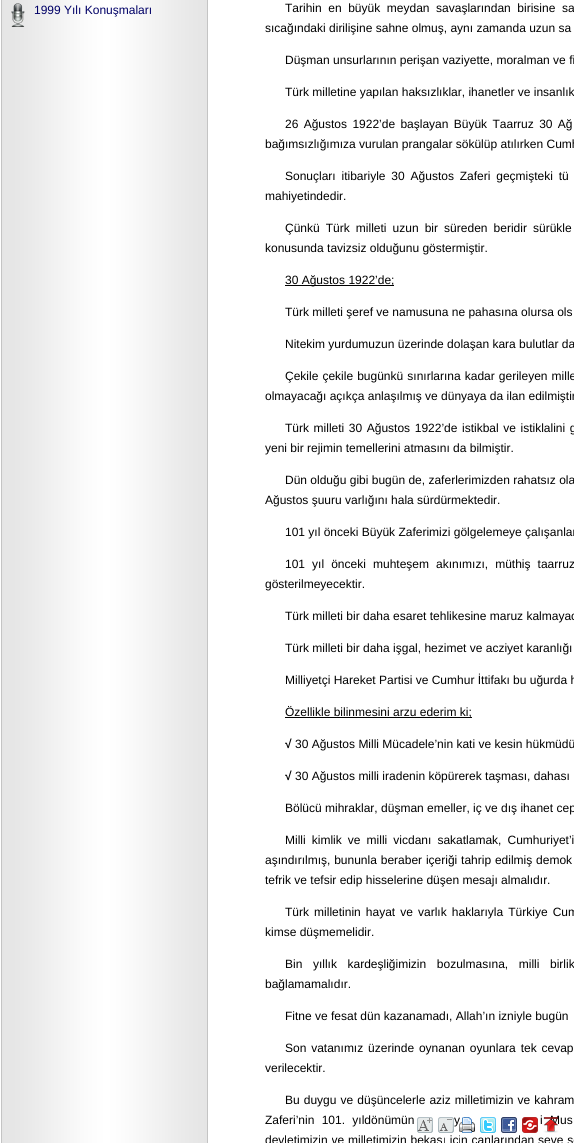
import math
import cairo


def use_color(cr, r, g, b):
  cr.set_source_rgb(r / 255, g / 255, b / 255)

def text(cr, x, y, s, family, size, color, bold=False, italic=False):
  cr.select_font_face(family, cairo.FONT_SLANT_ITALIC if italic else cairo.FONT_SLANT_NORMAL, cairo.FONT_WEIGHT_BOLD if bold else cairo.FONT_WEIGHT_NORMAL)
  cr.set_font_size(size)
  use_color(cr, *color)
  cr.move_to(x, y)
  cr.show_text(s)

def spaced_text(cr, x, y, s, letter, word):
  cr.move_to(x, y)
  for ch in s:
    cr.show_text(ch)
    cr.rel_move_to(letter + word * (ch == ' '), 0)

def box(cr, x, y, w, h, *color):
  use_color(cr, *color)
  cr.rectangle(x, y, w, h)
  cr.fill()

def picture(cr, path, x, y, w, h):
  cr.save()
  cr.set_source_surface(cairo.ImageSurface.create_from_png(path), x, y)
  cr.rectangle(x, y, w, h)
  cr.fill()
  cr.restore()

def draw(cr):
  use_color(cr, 255, 255, 255)
  cr.paint()
  picture(cr, "img_01.png", 1, 0, 207, 1143)
  picture(cr, "img_02.png", 11, 3, 14, 24)
  box(cr, 285, 285, 109, 1, 0, 0, 0)
  box(cr, 285, 717, 187, 1, 0, 0, 0)
  picture(cr, "img_03.png", 417, 1117, 16, 16)
  picture(cr, "img_04.png", 438, 1117, 16, 16)
  picture(cr, "img_06.png", 480, 1117, 16, 16)
  picture(cr, "img_07.png", 501, 1117, 16, 16)
  picture(cr, "img_08.png", 522, 1117, 16, 16)
  text(cr, 34, 14, "1999 Yılı Konuşmaları", "Liberation Sans", 12, (0, 0, 102))
  use_color(cr, 0, 0, 0)
  spaced_text(cr, 285, 12, "Tarihin en büyük meydan savaşlarından birisine sa", 0, 3.25)
  text(cr, 265, 32, "sıcağındaki dirilişine sahne olmuş, aynı zamanda uzun sa", "Liberation Sans", 12, (0, 0, 0))
  text(cr, 285, 64, "Düşman unsurlarının perişan vaziyette, moralman ve fi", "Liberation Sans", 12, (0, 0, 0))
  text(cr, 285, 96, "Türk milletine yapılan haksızlıklar, ihanetler ve insanlık", "Liberation Sans", 12, (0, 0, 0))
  spaced_text(cr, 285, 128, "26 Ağustos 1922’de başlayan Büyük Taarruz 30 Ağ", 0, 2)
  text(cr, 265, 148, "bağımsızlığımıza vurulan prangalar sökülüp atılırken Cumh", "Liberation Sans", 12, (0, 0, 0))
  spaced_text(cr, 285, 180, "Sonuçları itibariyle 30 Ağustos Zaferi geçmişteki tü", 0, 2.5)
  text(cr, 265, 200, "mahiyetindedir.", "Liberation Sans", 12, (0, 0, 0))
  spaced_text(cr, 285, 232, "Çünkü Türk milleti uzun bir süreden beridir sürükle", 0, 2.75)
  text(cr, 265, 252, "konusunda tavizsiz olduğunu göstermiştir.", "Liberation Sans", 12, (0, 0, 0))
  text(cr, 285, 284, "30 Ağustos 1922’de;", "Liberation Sans", 12, (0, 0, 0))
  text(cr, 285, 316, "Türk milleti şeref ve namusuna ne pahasına olursa ols", "Liberation Sans", 12, (0, 0, 0))
  text(cr, 285, 348, "Nitekim yurdumuzun üzerinde dolaşan kara bulutlar da", "Liberation Sans", 12, (0, 0, 0))
  spaced_text(cr, 285, 380, "Çekile çekile bugünkü sınırlarına kadar gerileyen mille", 0, 0.75)
  text(cr, 265, 400, "olmayacağı açıkça anlaşılmış ve dünyaya da ilan edilmiştir", "Liberation Sans", 12, (0, 0, 0))
  spaced_text(cr, 285, 432, "Türk milleti 30 Ağustos 1922’de istikbal ve istiklalini g", 0, 1.25)
  text(cr, 265, 452, "yeni bir rejimin temellerini atmasını da bilmiştir.", "Liberation Sans", 12, (0, 0, 0))
  text(cr, 285, 484, "Dün olduğu gibi bugün de, zaferlerimizden rahatsız ola", "Liberation Sans", 12, (0, 0, 0))
  text(cr, 265, 504, "Ağustos şuuru varlığını hala sürdürmektedir.", "Liberation Sans", 12, (0, 0, 0))
  text(cr, 285, 536, "101 yıl önceki Büyük Zaferimizi gölgelemeye çalışanlar", "Liberation Sans", 12, (0, 0, 0))
  spaced_text(cr, 285, 568, "101 yıl önceki muhteşem akınımızı, müthiş taarruz", 0, 3.75)
  text(cr, 265, 588, "gösterilmeyecektir.", "Liberation Sans", 12, (0, 0, 0))
  text(cr, 285, 620, "Türk milleti bir daha esaret tehlikesine maruz kalmayac", "Liberation Sans", 12, (0, 0, 0))
  text(cr, 285, 652, "Türk milleti bir daha işgal, hezimet ve acziyet karanlığı", "Liberation Sans", 12, (0, 0, 0))
  text(cr, 285, 684, "Milliyetçi Hareket Partisi ve Cumhur İttifakı bu uğurda h", "Liberation Sans", 12, (0, 0, 0))
  text(cr, 285, 716, "Özellikle bilinmesini arzu ederim ki;", "Liberation Sans", 12, (0, 0, 0))
  text(cr, 285, 748, "√", "Liberation Sans", 12, (0, 0, 0), bold=True)
  text(cr, 295, 748, "30 Ağustos Milli Mücadele’nin kati ve kesin hükmüdü", "Liberation Sans", 12, (0, 0, 0))
  text(cr, 285, 780, "√", "Liberation Sans", 12, (0, 0, 0), bold=True)
  text(cr, 295, 780, "30 Ağustos milli iradenin köpürerek taşması, dahası", "Liberation Sans", 12, (0, 0, 0))
  text(cr, 285, 812, "Bölücü mihraklar, düşman emeller, iç ve dış ihanet cep", "Liberation Sans", 12, (0, 0, 0))
  spaced_text(cr, 285, 844, "Milli kimlik ve milli vicdanı sakatlamak, Cumhuriyet’i", 0, 2.75)
  spaced_text(cr, 265, 864, "aşındırılmış, bununla beraber içeriği tahrip edilmiş demok", 0, 0.5)
  text(cr, 265, 884, "tefrik ve tefsir edip hisselerine düşen mesajı almalıdır.", "Liberation Sans", 12, (0, 0, 0))
  spaced_text(cr, 285, 916, "Türk milletinin hayat ve varlık haklarıyla Türkiye Cum", 0, 1.75)
  text(cr, 265, 936, "kimse düşmemelidir.", "Liberation Sans", 12, (0, 0, 0))
  spaced_text(cr, 285, 968, "Bin yıllık kardeşliğimizin bozulmasına, milli birlik", 0, 7.25)
  text(cr, 265, 988, "bağlamamalıdır.", "Liberation Sans", 12, (0, 0, 0))
  text(cr, 285, 1020, "Fitne ve fesat dün kazanamadı, Allah’ın izniyle bugün", "Liberation Sans", 12, (0, 0, 0))
  spaced_text(cr, 285, 1052, "Son vatanımız üzerinde oynanan oyunlara tek cevap", 0, 1.5)
  text(cr, 265, 1072, "verilecektir.", "Liberation Sans", 12, (0, 0, 0))
  spaced_text(cr, 285, 1104, "Bu duygu ve düşüncelerle aziz milletimizin ve kahram", 0, 0.75)
  spaced_text(cr, 265, 1124, "Zaferi’nin 101. yıldönümün", 0, 4)
  spaced_text(cr, 454, 1124, "y", 0, 4)
  spaced_text(cr, 540, 1124, "i Mus", 0, 4)
  spaced_text(cr, 265, 1144, "devletimizin ve milletimizin bekası için canlarından seve se", 0, 0.5)
  picture(cr, "img_05.png", 459, 1117, 16, 16)
  picture(cr, "img_09.png", 543, 1117, 16, 16)


surface = cairo.ImageSurface(cairo.FORMAT_RGB24, 574, 1143)
cr = cairo.Context(surface)
options = cairo.FontOptions()
options.set_hint_metrics(cairo.HINT_METRICS_OFF)
options.set_hint_style(cairo.HINT_STYLE_NONE)
cr.set_font_options(options)
cr.set_miter_limit(4)
draw(cr)
surface.write_to_png("out.png")
